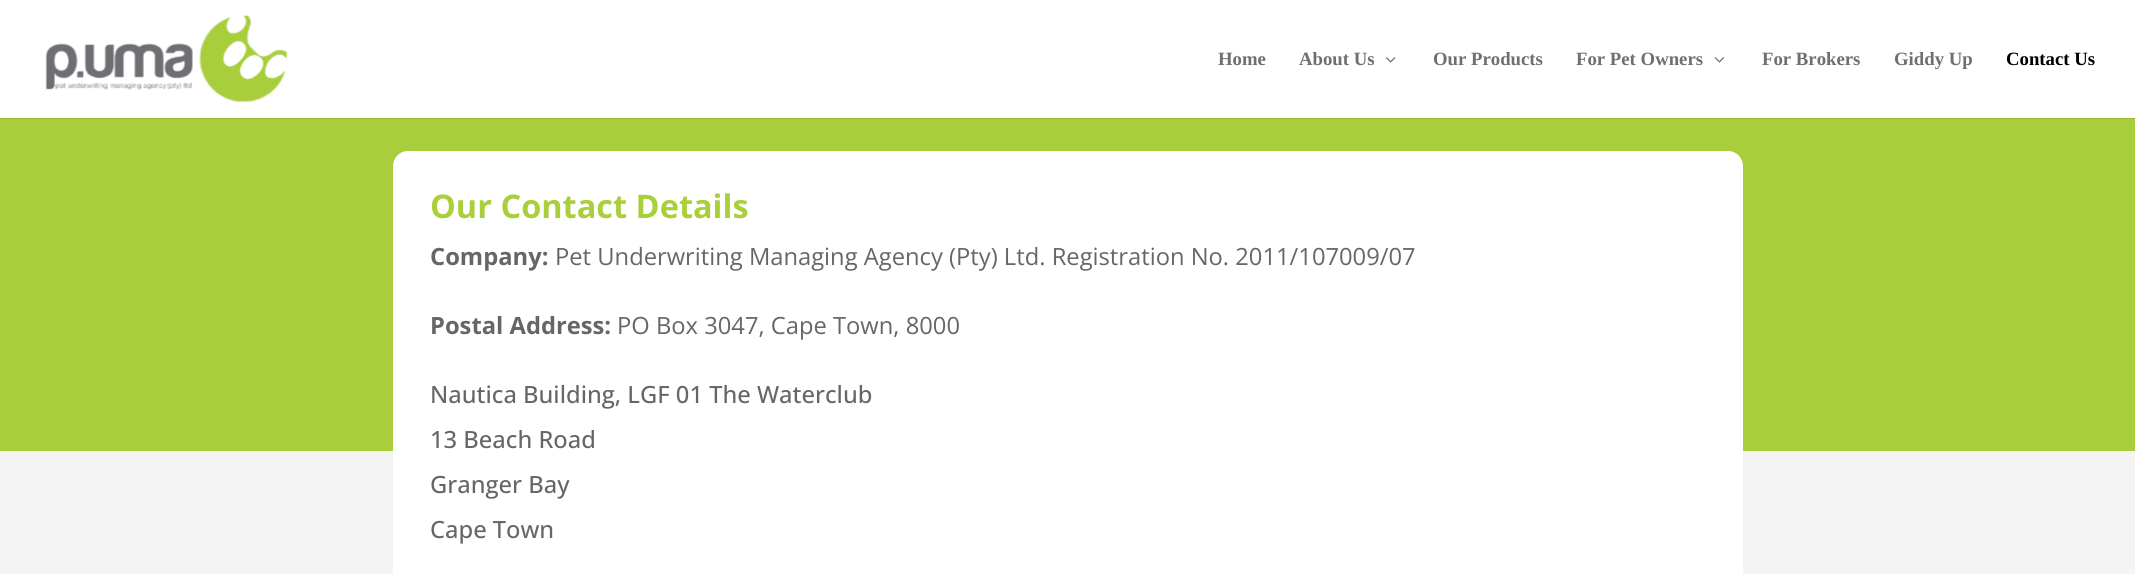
import math
import cairo


def use_color(cr, r, g, b):
  cr.set_source_rgb(r / 255, g / 255, b / 255)

def text(cr, x, y, s, family, size, color, bold=False, italic=False):
  cr.select_font_face(family, cairo.FONT_SLANT_ITALIC if italic else cairo.FONT_SLANT_NORMAL, cairo.FONT_WEIGHT_BOLD if bold else cairo.FONT_WEIGHT_NORMAL)
  cr.set_font_size(size)
  use_color(cr, *color)
  cr.move_to(x, y)
  cr.show_text(s)

def box(cr, x, y, w, h, *color):
  use_color(cr, *color)
  cr.rectangle(x, y, w, h)
  cr.fill()

def round_rect(cr, x, y, w, h, r):
  cr.new_sub_path()
  for i, (u, v) in enumerate([(x + w - r, y + h - r), (x + r, y + h - r), (x + r, y + r), (x + w - r, y + r)]):
    cr.arc(u, v, r, i * math.pi / 2, (i + 1) * math.pi / 2)
  cr.close_path()

def picture(cr, path, x, y, w, h):
  cr.save()
  cr.set_source_surface(cairo.ImageSurface.create_from_png(path), x, y)
  cr.rectangle(x, y, w, h)
  cr.fill()
  cr.restore()

def draw(cr):
  use_color(cr, 255, 255, 255)
  cr.paint()
  box(cr, 0, 118, 2135, 1, 151, 186, 53)
  picture(cr, "img_01.png", 45, 14, 243, 88)
  picture(cr, "img_02.png", 1386, 57, 10, 6)
  picture(cr, "img_03.png", 1714, 57, 10, 6)
  box(cr, 0, 119, 2135, 332, 168, 207, 59)
  box(cr, 0, 451, 2135, 123, 244, 244, 244)
  use_color(cr, 255, 255, 255)
  round_rect(cr, 393, 151, 1350, 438, 15)
  cr.fill()
  text(cr, 1218, 65, "Home", "Liberation Serif", 18.75, (109, 111, 114), bold=True)
  text(cr, 1299, 65, "About Us", "Liberation Serif", 18.75, (109, 111, 114), bold=True)
  text(cr, 1433, 65, "Our Products", "Liberation Serif", 18.75, (109, 111, 114), bold=True)
  text(cr, 1576, 65, "For Pet Owners", "Liberation Serif", 18.75, (109, 111, 114), bold=True)
  text(cr, 1762, 65, "For Brokers", "Liberation Serif", 18.75, (109, 111, 114), bold=True)
  text(cr, 1894, 65, "Giddy Up", "Liberation Serif", 18.75, (109, 111, 114), bold=True)
  text(cr, 2006, 65, "Contact Us", "Liberation Serif", 18.75, (0, 0, 0), bold=True)
  text(cr, 430, 218, "Our Contact Details", "Open Sans", 32.5, (169, 207, 58), bold=True)
  text(cr, 430, 265, "Company:", "Open Sans", 23.75, (102, 102, 102), bold=True)
  text(cr, 555, 265, "Pet Underwriting Managing Agency (Pty) Ltd. Registration No. 2011/107009/07", "Open Sans", 23.75, (102, 102, 102))
  text(cr, 430, 334, "Postal Address:", "Open Sans", 23.75, (102, 102, 102), bold=True)
  text(cr, 617, 334, "PO Box 3047, Cape Town, 8000", "Open Sans", 23.75, (102, 102, 102))
  text(cr, 430, 403, "Nautica Building, LGF 01 The Waterclub", "Open Sans Medium", 23.75, (102, 102, 102))
  text(cr, 430, 448, "13 Beach Road", "Open Sans Medium", 23.75, (102, 102, 102))
  text(cr, 430, 493, "Granger Bay", "Open Sans Medium", 23.75, (102, 102, 102))
  text(cr, 430, 538, "Cape Town", "Open Sans Medium", 23.75, (102, 102, 102))


surface = cairo.ImageSurface(cairo.FORMAT_RGB24, 2135, 574)
cr = cairo.Context(surface)
options = cairo.FontOptions()
options.set_hint_metrics(cairo.HINT_METRICS_OFF)
options.set_hint_style(cairo.HINT_STYLE_NONE)
cr.set_font_options(options)
cr.set_miter_limit(4)
draw(cr)
surface.write_to_png("out.png")
